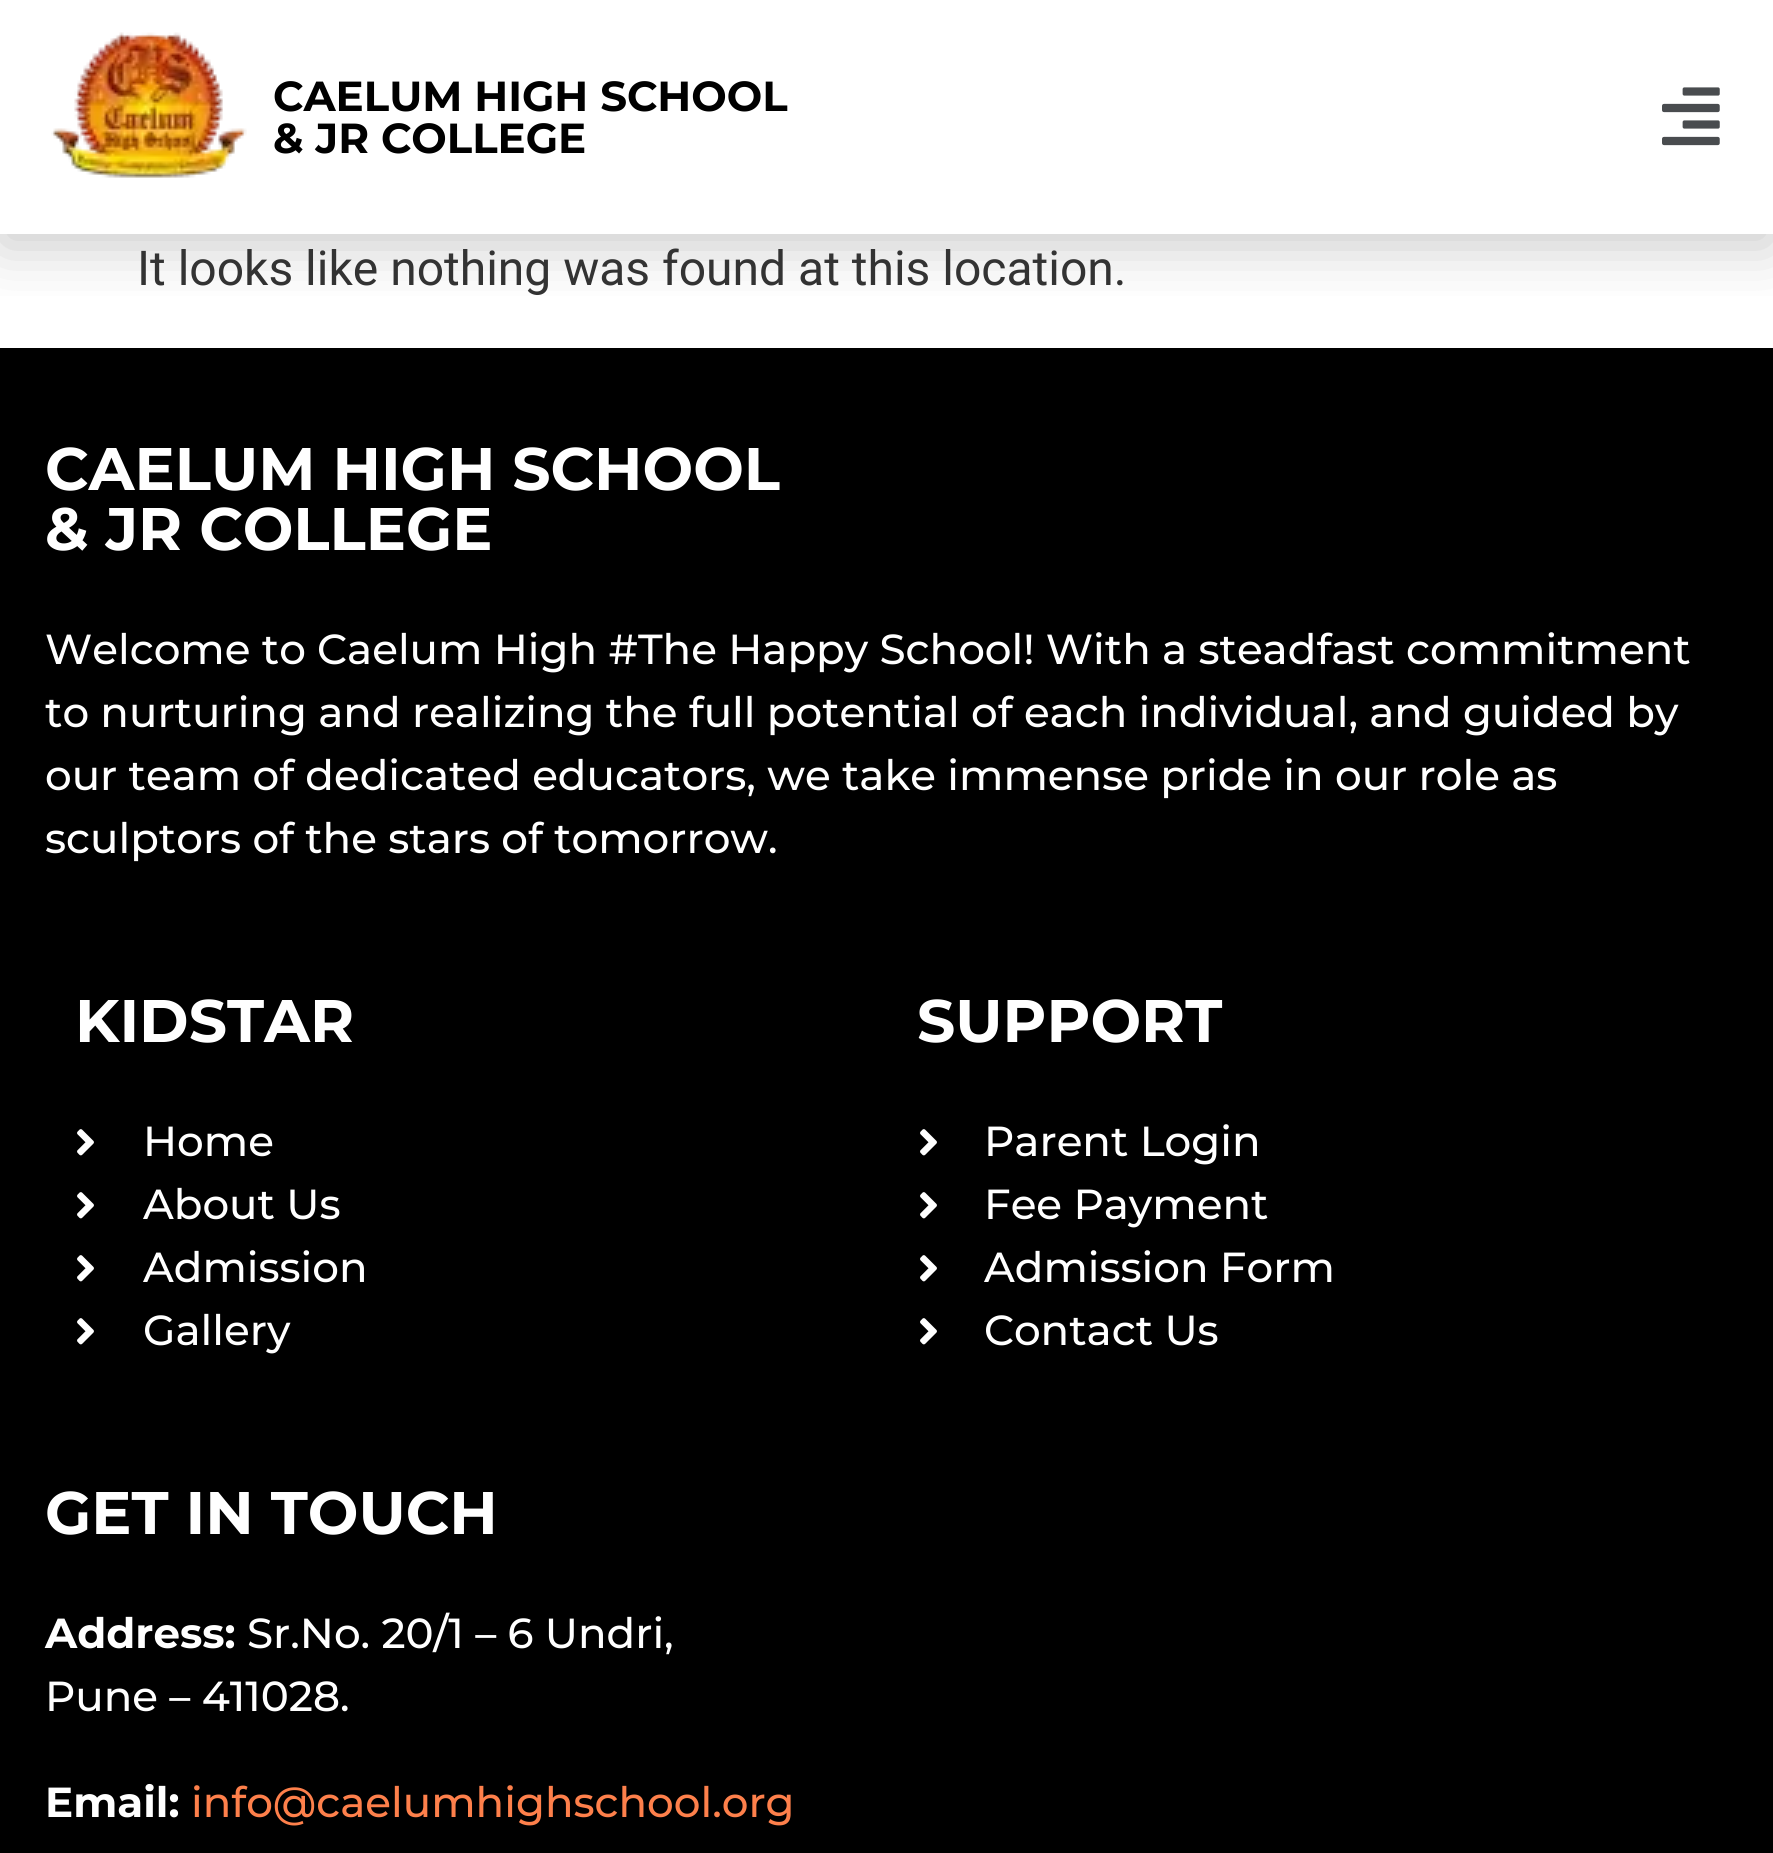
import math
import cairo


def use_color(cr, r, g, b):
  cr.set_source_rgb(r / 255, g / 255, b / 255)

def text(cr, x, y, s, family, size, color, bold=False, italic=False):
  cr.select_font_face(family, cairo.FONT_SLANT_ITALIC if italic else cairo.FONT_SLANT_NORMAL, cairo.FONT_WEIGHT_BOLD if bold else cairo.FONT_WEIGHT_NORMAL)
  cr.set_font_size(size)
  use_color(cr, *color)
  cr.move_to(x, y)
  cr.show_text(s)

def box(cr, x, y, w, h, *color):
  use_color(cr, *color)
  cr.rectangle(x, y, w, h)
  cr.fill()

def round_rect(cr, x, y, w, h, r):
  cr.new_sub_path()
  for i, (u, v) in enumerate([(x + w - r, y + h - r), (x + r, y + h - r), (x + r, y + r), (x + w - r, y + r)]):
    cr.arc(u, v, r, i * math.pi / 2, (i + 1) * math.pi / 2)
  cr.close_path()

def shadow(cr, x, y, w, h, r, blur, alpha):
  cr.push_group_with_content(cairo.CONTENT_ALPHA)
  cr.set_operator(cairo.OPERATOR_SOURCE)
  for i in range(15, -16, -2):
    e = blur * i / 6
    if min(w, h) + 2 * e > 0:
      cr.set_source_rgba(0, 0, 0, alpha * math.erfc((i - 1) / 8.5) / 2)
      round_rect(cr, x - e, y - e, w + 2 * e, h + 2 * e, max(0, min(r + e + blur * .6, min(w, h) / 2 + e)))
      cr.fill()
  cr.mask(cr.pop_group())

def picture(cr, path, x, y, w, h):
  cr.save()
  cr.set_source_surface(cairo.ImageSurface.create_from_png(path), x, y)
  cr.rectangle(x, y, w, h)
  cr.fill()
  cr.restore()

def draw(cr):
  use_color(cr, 255, 255, 255)
  cr.paint()
  cr.save()
  cr.rectangle(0, 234, 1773, 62)
  cr.clip()
  use_color(cr, 131, 131, 131)
  shadow(cr, 0, 12, 1773, 234, 0, 30, 0.43)
  cr.restore()
  picture(cr, "img_01.png", 51, 32, 196, 146)
  picture(cr, "img_02.png", 1662, 87, 58, 59)
  box(cr, 0, 348, 1773, 1505, 0, 0, 0)
  picture(cr, "img_03.png", 77, 1129, 17, 27)
  picture(cr, "img_03.png", 77, 1192, 17, 27)
  picture(cr, "img_03.png", 77, 1255, 17, 27)
  picture(cr, "img_03.png", 77, 1318, 17, 27)
  picture(cr, "img_03.png", 920, 1129, 17, 27)
  picture(cr, "img_03.png", 920, 1192, 17, 27)
  picture(cr, "img_03.png", 920, 1255, 17, 27)
  picture(cr, "img_03.png", 920, 1318, 17, 27)
  text(cr, 273, 111, "CAELUM HIGH SCHOOL", "Montserrat", 42, (0, 0, 0), bold=True)
  text(cr, 273, 153, "& JR COLLEGE", "Montserrat", 42, (0, 0, 0), bold=True)
  text(cr, 137, 285, "It looks like nothing was found at this location.", "Roboto", 48, (51, 51, 51))
  text(cr, 45, 490, "CAELUM HIGH SCHOOL", "Montserrat", 60, (255, 255, 255), bold=True)
  text(cr, 45, 550, "& JR COLLEGE", "Montserrat", 60, (255, 255, 255), bold=True)
  text(cr, 45, 664, "Welcome to Caelum High #The Happy School! With a steadfast commitment", "Montserrat Medium", 42, (255, 255, 255))
  text(cr, 45, 727, "to nurturing and realizing the full potential of each individual, and guided by", "Montserrat Medium", 42, (255, 255, 255))
  text(cr, 45, 790, "our team of dedicated educators, we take immense pride in our role as", "Montserrat Medium", 42, (255, 255, 255))
  text(cr, 45, 853, "sculptors of the stars of tomorrow.", "Montserrat Medium", 42, (255, 255, 255))
  text(cr, 75, 1042, "KIDSTAR", "Montserrat", 60, (255, 255, 255), bold=True)
  text(cr, 143, 1156, "Home", "Montserrat Medium", 42, (255, 255, 255))
  text(cr, 143, 1219, "About Us", "Montserrat Medium", 42, (255, 255, 255))
  text(cr, 143, 1282, "Admission", "Montserrat Medium", 42, (255, 255, 255))
  text(cr, 143, 1345, "Gallery", "Montserrat Medium", 42, (255, 255, 255))
  text(cr, 917, 1042, "SUPPORT", "Montserrat", 60, (255, 255, 255), bold=True)
  text(cr, 984, 1156, "Parent Login", "Montserrat Medium", 42, (255, 255, 255))
  text(cr, 984, 1219, "Fee Payment", "Montserrat Medium", 42, (255, 255, 255))
  text(cr, 984, 1282, "Admission Form", "Montserrat Medium", 42, (255, 255, 255))
  text(cr, 984, 1345, "Contact Us", "Montserrat Medium", 42, (255, 255, 255))
  text(cr, 45, 1534, "GET IN TOUCH", "Montserrat", 60, (255, 255, 255), bold=True)
  text(cr, 45, 1648, "Address:", "Montserrat", 42, (255, 255, 255), bold=True)
  text(cr, 247, 1648, "Sr.No. 20/1 – 6 Undri,", "Montserrat Medium", 42, (255, 255, 255))
  text(cr, 45, 1711, "Pune – 411028.", "Montserrat Medium", 42, (255, 255, 255))
  text(cr, 45, 1817, "Email:", "Montserrat", 42, (255, 255, 255), bold=True)
  text(cr, 191, 1817, "info@caelumhighschool.org", "Montserrat Medium", 42, (254, 128, 75))


surface = cairo.ImageSurface(cairo.FORMAT_RGB24, 1773, 1853)
cr = cairo.Context(surface)
options = cairo.FontOptions()
options.set_hint_metrics(cairo.HINT_METRICS_OFF)
options.set_hint_style(cairo.HINT_STYLE_NONE)
cr.set_font_options(options)
cr.set_miter_limit(4)
draw(cr)
surface.write_to_png("out.png")
